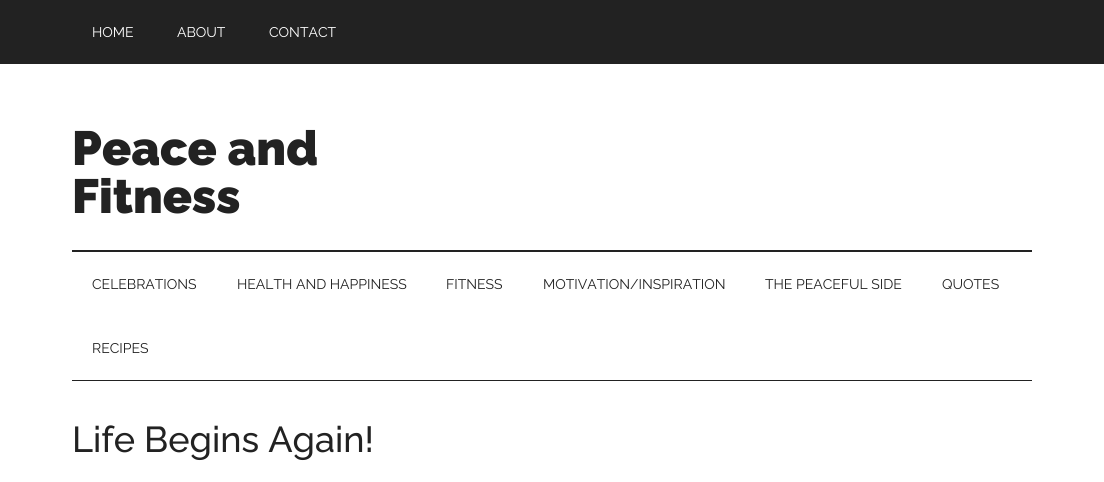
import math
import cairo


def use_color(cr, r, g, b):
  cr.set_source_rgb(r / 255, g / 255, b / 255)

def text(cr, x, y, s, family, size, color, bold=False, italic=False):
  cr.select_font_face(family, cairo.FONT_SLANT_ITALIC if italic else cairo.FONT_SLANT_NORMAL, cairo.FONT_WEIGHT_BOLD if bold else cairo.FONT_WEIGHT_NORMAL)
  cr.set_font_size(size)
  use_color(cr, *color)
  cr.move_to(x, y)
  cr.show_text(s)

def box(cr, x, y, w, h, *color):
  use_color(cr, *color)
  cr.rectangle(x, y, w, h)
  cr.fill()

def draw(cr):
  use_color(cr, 255, 255, 255)
  cr.paint()
  box(cr, 0, 0, 1104, 64, 34, 34, 34)
  box(cr, 72, 250, 960, 2, 34, 34, 34)
  box(cr, 72, 380, 960, 1, 34, 34, 34)
  text(cr, 92, 37, "HOME", "Raleway", 14, (255, 255, 255))
  text(cr, 177, 37, "ABOUT", "Raleway", 14, (255, 255, 255))
  text(cr, 269, 37, "CONTACT", "Raleway", 14, (255, 255, 255))
  text(cr, 72, 165, "Peace and", "Raleway Black", 48, (34, 34, 34))
  text(cr, 72, 213, "Fitness", "Raleway Black", 48, (34, 34, 34))
  text(cr, 92, 289, "CELEBRATIONS", "Raleway", 14, (34, 34, 34))
  text(cr, 237, 289, "HEALTH AND HAPPINESS", "Raleway", 14, (34, 34, 34))
  text(cr, 446, 289, "FITNESS", "Raleway", 14, (34, 34, 34))
  text(cr, 543, 289, "MOTIVATION/INSPIRATION", "Raleway", 14, (34, 34, 34))
  text(cr, 765, 289, "THE PEACEFUL SIDE", "Raleway", 14, (34, 34, 34))
  text(cr, 942, 289, "QUOTES", "Raleway", 14, (34, 34, 34))
  text(cr, 92, 353, "RECIPES", "Raleway", 14, (34, 34, 34))
  text(cr, 72, 452, "Life Begins Again!", "Raleway Medium", 36, (34, 34, 34))


surface = cairo.ImageSurface(cairo.FORMAT_RGB24, 1104, 482)
cr = cairo.Context(surface)
options = cairo.FontOptions()
options.set_hint_metrics(cairo.HINT_METRICS_OFF)
options.set_hint_style(cairo.HINT_STYLE_NONE)
cr.set_font_options(options)
cr.set_miter_limit(4)
draw(cr)
surface.write_to_png("out.png")
